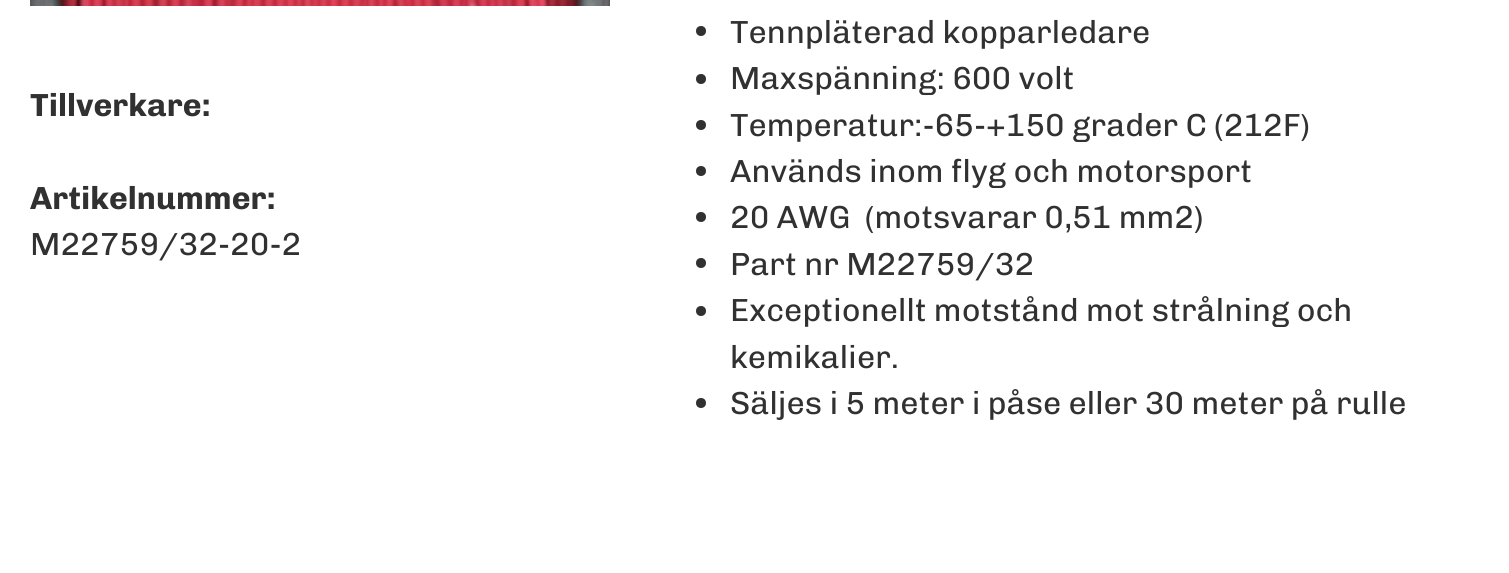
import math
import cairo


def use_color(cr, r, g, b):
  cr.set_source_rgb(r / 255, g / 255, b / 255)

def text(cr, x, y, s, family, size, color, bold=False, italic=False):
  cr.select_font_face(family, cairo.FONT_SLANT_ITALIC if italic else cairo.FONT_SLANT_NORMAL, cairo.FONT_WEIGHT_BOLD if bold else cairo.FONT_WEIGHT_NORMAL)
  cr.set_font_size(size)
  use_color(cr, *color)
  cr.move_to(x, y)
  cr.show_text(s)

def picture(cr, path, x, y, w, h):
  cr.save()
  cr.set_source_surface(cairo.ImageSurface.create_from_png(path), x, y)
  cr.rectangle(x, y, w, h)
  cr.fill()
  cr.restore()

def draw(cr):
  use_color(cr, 255, 255, 255)
  cr.paint()
  picture(cr, "img_01.png", 30, 0, 580, 6)
  use_color(cr, 49, 49, 49)
  cr.arc(701, 31, 5, 0, 2 * math.pi)
  cr.fill()
  cr.arc(701, 79, 5, 0, 2 * math.pi)
  cr.fill()
  cr.arc(701, 125, 5, 0, 2 * math.pi)
  cr.fill()
  cr.arc(701, 171, 5, 0, 2 * math.pi)
  cr.fill()
  cr.arc(701, 217, 5, 0, 2 * math.pi)
  cr.fill()
  cr.arc(701, 263, 5, 0, 2 * math.pi)
  cr.fill()
  cr.arc(701, 311, 5, 0, 2 * math.pi)
  cr.fill()
  cr.arc(701, 403, 5, 0, 2 * math.pi)
  cr.fill()
  text(cr, 30, 116, "Tillverkare:", "Chivo", 32, (49, 49, 49), bold=True)
  text(cr, 30, 209, "Artikelnummer:", "Chivo", 32, (49, 49, 49), bold=True)
  text(cr, 30, 255, "M22759/32-20-2", "Chivo", 32, (49, 49, 49))
  text(cr, 730, 43, "Tennpläterad kopparledare", "Chivo", 32, (49, 49, 49))
  text(cr, 730, 89, "Maxspänning: 600 volt", "Chivo", 32, (49, 49, 49))
  text(cr, 730, 136, "Temperatur:-65-+150 grader C (212F)", "Chivo", 32, (49, 49, 49))
  text(cr, 730, 182, "Används inom flyg och motorsport", "Chivo", 32, (49, 49, 49))
  text(cr, 730, 228, "20 AWG  (motsvarar 0,51 mm2)", "Chivo", 32, (49, 49, 49))
  text(cr, 730, 275, "Part nr M22759/32", "Chivo", 32, (49, 49, 49))
  text(cr, 730, 321, "Exceptionellt motstånd mot strålning och", "Chivo", 32, (49, 49, 49))
  text(cr, 730, 368, "kemikalier.", "Chivo", 32, (49, 49, 49))
  text(cr, 730, 414, "Säljes i 5 meter i påse eller 30 meter på rulle", "Chivo", 32, (49, 49, 49))


surface = cairo.ImageSurface(cairo.FORMAT_RGB24, 1509, 573)
cr = cairo.Context(surface)
options = cairo.FontOptions()
options.set_hint_metrics(cairo.HINT_METRICS_OFF)
options.set_hint_style(cairo.HINT_STYLE_NONE)
cr.set_font_options(options)
cr.set_miter_limit(4)
draw(cr)
surface.write_to_png("out.png")
